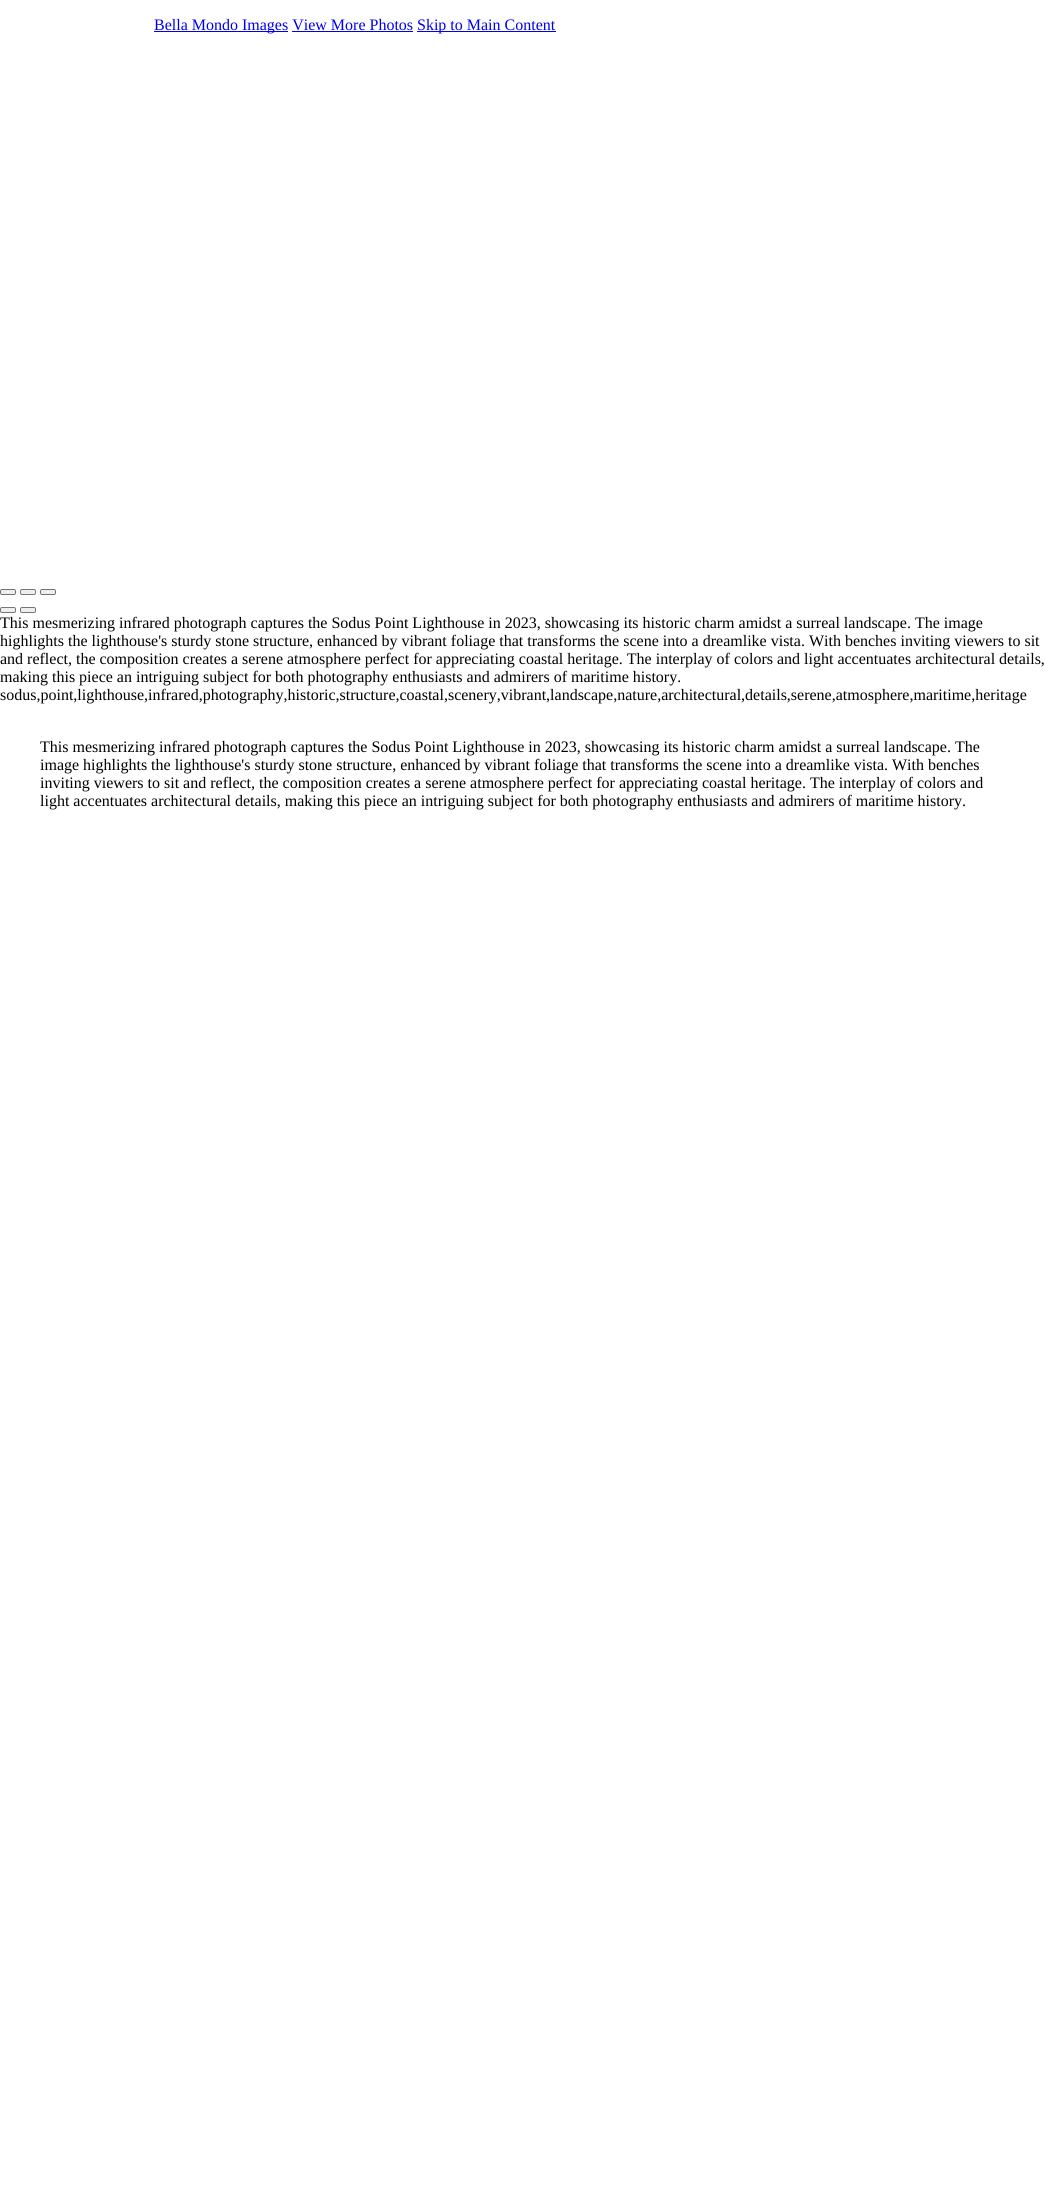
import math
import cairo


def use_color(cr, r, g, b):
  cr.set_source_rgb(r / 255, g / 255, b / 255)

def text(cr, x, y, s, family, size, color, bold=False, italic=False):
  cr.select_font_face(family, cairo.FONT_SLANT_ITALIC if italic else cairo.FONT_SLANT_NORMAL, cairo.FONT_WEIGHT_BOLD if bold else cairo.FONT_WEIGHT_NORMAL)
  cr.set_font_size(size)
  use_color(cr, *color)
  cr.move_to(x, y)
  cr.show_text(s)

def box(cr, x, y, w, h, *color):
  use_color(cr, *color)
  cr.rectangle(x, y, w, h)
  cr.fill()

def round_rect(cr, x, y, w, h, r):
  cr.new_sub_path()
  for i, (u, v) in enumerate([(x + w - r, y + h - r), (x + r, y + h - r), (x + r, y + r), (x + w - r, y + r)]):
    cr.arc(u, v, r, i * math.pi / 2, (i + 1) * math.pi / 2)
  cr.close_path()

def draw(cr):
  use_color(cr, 255, 255, 255)
  cr.paint()
  box(cr, 154, 31, 134, 1, 0, 0, 238)
  box(cr, 417, 31, 139, 1, 0, 0, 238)
  box(cr, 292, 31, 121, 1, 0, 0, 238)
  use_color(cr, 239, 239, 239)
  round_rect(cr, 0.5, 589.5, 15, 5, 1.5)
  cr.fill_preserve()
  use_color(cr, 118, 118, 118)
  cr.set_line_width(1)
  cr.stroke()
  use_color(cr, 239, 239, 239)
  round_rect(cr, 20.5, 589.5, 15, 5, 1.5)
  cr.fill_preserve()
  use_color(cr, 118, 118, 118)
  cr.stroke()
  use_color(cr, 239, 239, 239)
  round_rect(cr, 40.5, 589.5, 15, 5, 1.5)
  cr.fill_preserve()
  use_color(cr, 118, 118, 118)
  cr.stroke()
  use_color(cr, 239, 239, 239)
  round_rect(cr, 0.5, 607.5, 15, 5, 1.5)
  cr.fill_preserve()
  use_color(cr, 118, 118, 118)
  cr.stroke()
  use_color(cr, 239, 239, 239)
  round_rect(cr, 20.5, 607.5, 15, 5, 1.5)
  cr.fill_preserve()
  use_color(cr, 118, 118, 118)
  cr.stroke()
  text(cr, 154, 30, "Bella Mondo Images View More Photos", "Liberation Serif", 16, (0, 0, 238))
  text(cr, 417, 30, "Skip to Main Content", "Liberation Serif", 16, (0, 0, 238))
  text(cr, 0, 628, "This mesmerizing infrared photograph captures the Sodus Point Lighthouse in 2023, showcasing its historic charm amidst a surreal landscape. The image", "Liberation Serif", 16, (0, 0, 0))
  text(cr, 0, 646, "highlights the lighthouse's sturdy stone structure, enhanced by vibrant foliage that transforms the scene into a dreamlike vista. With benches inviting viewers to sit", "Liberation Serif", 16, (0, 0, 0))
  text(cr, 0, 664, "and reflect, the composition creates a serene atmosphere perfect for appreciating coastal heritage. The interplay of colors and light accentuates architectural details,", "Liberation Serif", 16, (0, 0, 0))
  text(cr, 0, 682, "making this piece an intriguing subject for both photography enthusiasts and admirers of maritime history.", "Liberation Serif", 16, (0, 0, 0))
  text(cr, 0, 700, "sodus,point,lighthouse,infrared,photography,historic,structure,coastal,scenery,vibrant,landscape,nature,architectural,details,serene,atmosphere,maritime,heritage", "Liberation Serif", 16, (0, 0, 0))
  text(cr, 40, 752, "This mesmerizing infrared photograph captures the Sodus Point Lighthouse in 2023, showcasing its historic charm amidst a surreal landscape. The", "Liberation Serif", 16, (0, 0, 0))
  text(cr, 40, 770, "image highlights the lighthouse's sturdy stone structure, enhanced by vibrant foliage that transforms the scene into a dreamlike vista. With benches", "Liberation Serif", 16, (0, 0, 0))
  text(cr, 40, 788, "inviting viewers to sit and reflect, the composition creates a serene atmosphere perfect for appreciating coastal heritage. The interplay of colors and", "Liberation Serif", 16, (0, 0, 0))
  text(cr, 40, 806, "light accentuates architectural details, making this piece an intriguing subject for both photography enthusiasts and admirers of maritime history.", "Liberation Serif", 16, (0, 0, 0))


surface = cairo.ImageSurface(cairo.FORMAT_RGB24, 1045, 2197)
cr = cairo.Context(surface)
options = cairo.FontOptions()
options.set_hint_metrics(cairo.HINT_METRICS_OFF)
options.set_hint_style(cairo.HINT_STYLE_NONE)
cr.set_font_options(options)
cr.set_miter_limit(4)
draw(cr)
surface.write_to_png("out.png")
